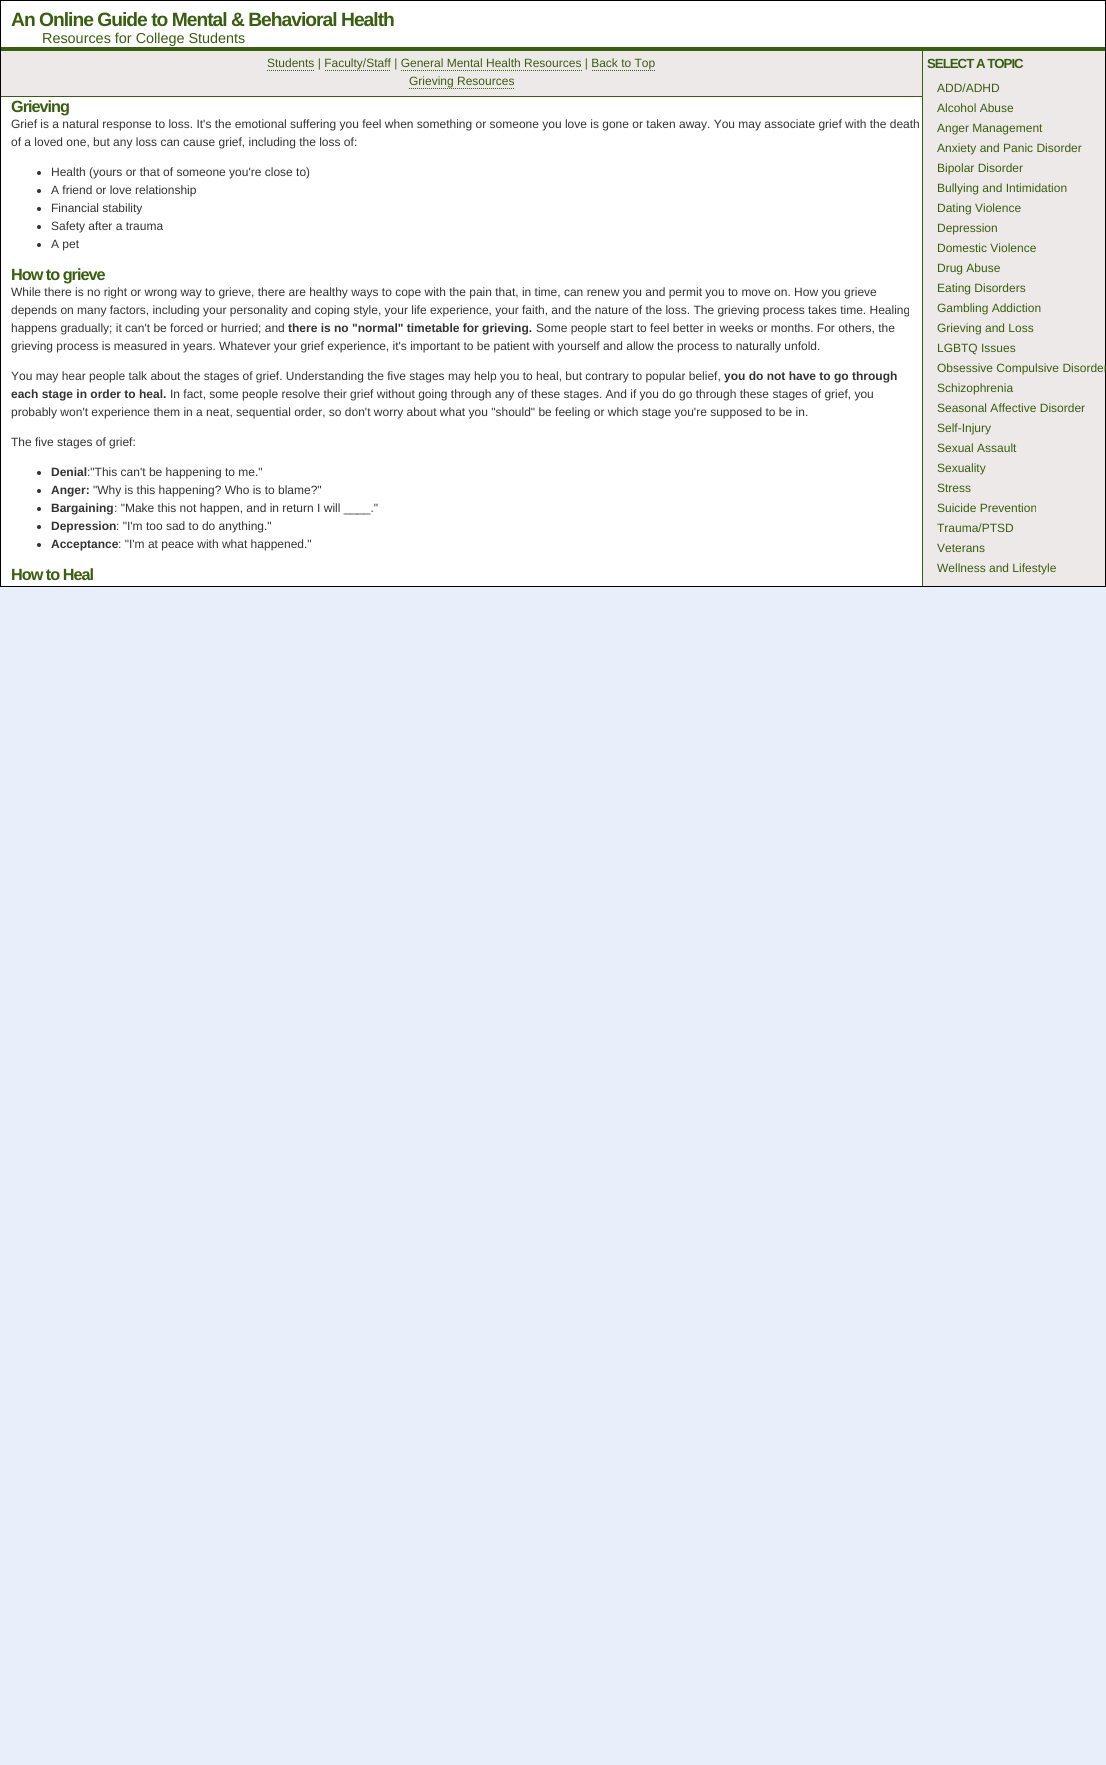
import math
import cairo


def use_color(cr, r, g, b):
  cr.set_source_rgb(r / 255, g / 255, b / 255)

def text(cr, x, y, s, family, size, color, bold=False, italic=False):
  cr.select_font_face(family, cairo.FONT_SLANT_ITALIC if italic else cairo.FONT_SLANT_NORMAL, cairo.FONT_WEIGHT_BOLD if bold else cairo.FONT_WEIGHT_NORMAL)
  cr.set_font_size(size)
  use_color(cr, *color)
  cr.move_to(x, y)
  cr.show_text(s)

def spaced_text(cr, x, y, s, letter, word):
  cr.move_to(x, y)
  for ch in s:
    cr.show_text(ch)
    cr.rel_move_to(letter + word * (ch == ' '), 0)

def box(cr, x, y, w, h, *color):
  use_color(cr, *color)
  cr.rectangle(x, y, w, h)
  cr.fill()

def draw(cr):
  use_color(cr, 230, 239, 250)
  cr.paint()
  cr.rectangle(0.5, 0.5, 1105, 586)
  use_color(cr, 0, 0, 0)
  cr.set_line_width(1)
  cr.stroke()
  box(cr, 1, 1, 1104, 46, 255, 255, 255)
  box(cr, 1, 47, 1104, 4, 56, 94, 15)
  box(cr, 1, 51, 921, 45, 238, 233, 233)
  box(cr, 1, 96, 921, 1, 56, 94, 15)
  cr.new_path()
  cr.move_to(267, 70.5)
  cr.line_to(315, 70.5)
  cr.set_dash([1, 1])
  cr.stroke()
  cr.new_path()
  cr.move_to(325, 70.5)
  cr.line_to(391, 70.5)
  cr.stroke()
  cr.new_path()
  cr.move_to(401, 70.5)
  cr.line_to(582, 70.5)
  cr.stroke()
  cr.new_path()
  cr.move_to(592, 70.5)
  cr.line_to(656, 70.5)
  cr.stroke()
  cr.new_path()
  cr.move_to(409, 88.5)
  cr.line_to(514, 88.5)
  cr.stroke()
  box(cr, 1, 97, 921, 489, 255, 255, 255)
  use_color(cr, 51, 51, 51)
  cr.arc(39, 173, 2, 0, 2 * math.pi)
  cr.fill()
  cr.arc(39, 191, 2, 0, 2 * math.pi)
  cr.fill()
  cr.arc(39, 209, 2, 0, 2 * math.pi)
  cr.fill()
  cr.arc(39, 227, 2, 0, 2 * math.pi)
  cr.fill()
  cr.arc(39, 245, 2, 0, 2 * math.pi)
  cr.fill()
  cr.arc(39, 473, 2, 0, 2 * math.pi)
  cr.fill()
  cr.arc(39, 491, 2, 0, 2 * math.pi)
  cr.fill()
  cr.arc(39, 509, 2, 0, 2 * math.pi)
  cr.fill()
  cr.arc(39, 527, 2, 0, 2 * math.pi)
  cr.fill()
  cr.arc(39, 545, 2, 0, 2 * math.pi)
  cr.fill()
  box(cr, 923, 51, 182, 535, 238, 233, 233)
  box(cr, 922, 51, 1, 535, 56, 94, 15)
  cr.select_font_face("Liberation Sans", cairo.FONT_SLANT_NORMAL, cairo.FONT_WEIGHT_BOLD)
  cr.set_font_size(19.25)
  spaced_text(cr, 11, 26, "An Online Guide to Mental & Behavioral Health", -1, 0)
  text(cr, 42, 43, "Resources for College Students", "Liberation Sans", 14.4, (56, 94, 15))
  text(cr, 267, 67, "Students | Faculty/Staff | General Mental Health Resources | Back to Top", "Liberation Sans", 12, (56, 94, 15))
  text(cr, 409, 85, "Grieving Resources", "Liberation Sans", 12, (56, 94, 15))
  cr.select_font_face("Liberation Sans", cairo.FONT_SLANT_NORMAL, cairo.FONT_WEIGHT_BOLD)
  cr.set_font_size(16.25)
  spaced_text(cr, 11, 112, "Grieving", -1, 0)
  text(cr, 11, 128, "Grief is a natural response to loss. It's the emotional suffering you feel when something or someone you love is gone or taken away. You may associate grief with the death", "Liberation Sans", 12, (51, 51, 51))
  text(cr, 11, 146, "of a loved one, but any loss can cause grief, including the loss of:", "Liberation Sans", 12, (51, 51, 51))
  text(cr, 51, 176, "Health (yours or that of someone you're close to)", "Liberation Sans", 12, (51, 51, 51))
  text(cr, 51, 194, "A friend or love relationship", "Liberation Sans", 12, (51, 51, 51))
  text(cr, 51, 212, "Financial stability", "Liberation Sans", 12, (51, 51, 51))
  text(cr, 51, 230, "Safety after a trauma", "Liberation Sans", 12, (51, 51, 51))
  text(cr, 51, 248, "A pet", "Liberation Sans", 12, (51, 51, 51))
  cr.select_font_face("Liberation Sans", cairo.FONT_SLANT_NORMAL, cairo.FONT_WEIGHT_BOLD)
  cr.set_font_size(16.25)
  use_color(cr, 56, 94, 15)
  spaced_text(cr, 11, 280, "How to grieve", -1, 0)
  text(cr, 11, 296, "While there is no right or wrong way to grieve, there are healthy ways to cope with the pain that, in time, can renew you and permit you to move on. How you grieve", "Liberation Sans", 12, (51, 51, 51))
  text(cr, 11, 314, "depends on many factors, including your personality and coping style, your life experience, your faith, and the nature of the loss. The grieving process takes time. Healing", "Liberation Sans", 12, (51, 51, 51))
  text(cr, 11, 332, "happens gradually; it can't be forced or hurried; and", "Liberation Sans", 12, (51, 51, 51))
  text(cr, 288, 332, "there is no \"normal\" timetable for grieving.", "Liberation Sans", 12, (51, 51, 51), bold=True)
  text(cr, 536, 332, "Some people start to feel better in weeks or months. For others, the", "Liberation Sans", 12, (51, 51, 51))
  text(cr, 11, 350, "grieving process is measured in years. Whatever your grief experience, it's important to be patient with yourself and allow the process to naturally unfold.", "Liberation Sans", 12, (51, 51, 51))
  text(cr, 11, 380, "You may hear people talk about the stages of grief. Understanding the five stages may help you to heal, but contrary to popular belief,", "Liberation Sans", 12, (51, 51, 51))
  text(cr, 724, 380, "you do not have to go through", "Liberation Sans", 12, (51, 51, 51), bold=True)
  text(cr, 11, 398, "each stage in order to heal.", "Liberation Sans", 12, (51, 51, 51), bold=True)
  text(cr, 170, 398, "In fact, some people resolve their grief without going through any of these stages. And if you do go through these stages of grief, you", "Liberation Sans", 12, (51, 51, 51))
  text(cr, 11, 416, "probably won't experience them in a neat, sequential order, so don't worry about what you \"should\" be feeling or which stage you're supposed to be in.", "Liberation Sans", 12, (51, 51, 51))
  text(cr, 11, 446, "The five stages of grief:", "Liberation Sans", 12, (51, 51, 51))
  text(cr, 51, 476, "Denial", "Liberation Sans", 12, (51, 51, 51), bold=True)
  text(cr, 87, 476, ":\"This can't be happening to me.\"", "Liberation Sans", 12, (51, 51, 51))
  text(cr, 51, 494, "Anger:", "Liberation Sans", 12, (51, 51, 51), bold=True)
  text(cr, 93, 494, "\"Why is this happening? Who is to blame?\"", "Liberation Sans", 12, (51, 51, 51))
  text(cr, 51, 512, "Bargaining", "Liberation Sans", 12, (51, 51, 51), bold=True)
  text(cr, 114, 512, ": \"Make this not happen, and in return I will ____.\"", "Liberation Sans", 12, (51, 51, 51))
  text(cr, 51, 530, "Depression", "Liberation Sans", 12, (51, 51, 51), bold=True)
  text(cr, 116, 530, ": \"I'm too sad to do anything.\"", "Liberation Sans", 12, (51, 51, 51))
  text(cr, 51, 548, "Acceptance", "Liberation Sans", 12, (51, 51, 51), bold=True)
  text(cr, 118, 548, ": \"I'm at peace with what happened.\"", "Liberation Sans", 12, (51, 51, 51))
  cr.select_font_face("Liberation Sans", cairo.FONT_SLANT_NORMAL, cairo.FONT_WEIGHT_BOLD)
  cr.set_font_size(16.25)
  use_color(cr, 56, 94, 15)
  spaced_text(cr, 11, 580, "How to Heal", -1, 0)
  cr.set_font_size(13.25)
  spaced_text(cr, 927, 68, "SELECT A TOPIC", -1, 0)
  text(cr, 937, 92, "ADD/ADHD", "Liberation Sans", 12, (56, 94, 15))
  text(cr, 937, 112, "Alcohol Abuse", "Liberation Sans", 12, (56, 94, 15))
  text(cr, 937, 132, "Anger Management", "Liberation Sans", 12, (56, 94, 15))
  text(cr, 937, 152, "Anxiety and Panic Disorder", "Liberation Sans", 12, (56, 94, 15))
  text(cr, 937, 172, "Bipolar Disorder", "Liberation Sans", 12, (56, 94, 15))
  text(cr, 937, 192, "Bullying and Intimidation", "Liberation Sans", 12, (56, 94, 15))
  text(cr, 937, 212, "Dating Violence", "Liberation Sans", 12, (56, 94, 15))
  text(cr, 937, 232, "Depression", "Liberation Sans", 12, (56, 94, 15))
  text(cr, 937, 252, "Domestic Violence", "Liberation Sans", 12, (56, 94, 15))
  text(cr, 937, 272, "Drug Abuse", "Liberation Sans", 12, (56, 94, 15))
  text(cr, 937, 292, "Eating Disorders", "Liberation Sans", 12, (56, 94, 15))
  text(cr, 937, 312, "Gambling Addiction", "Liberation Sans", 12, (56, 94, 15))
  text(cr, 937, 332, "Grieving and Loss", "Liberation Sans", 12, (56, 94, 15))
  text(cr, 937, 352, "LGBTQ Issues", "Liberation Sans", 12, (56, 94, 15))
  text(cr, 937, 372, "Obsessive Compulsive Disorder", "Liberation Sans", 12, (56, 94, 15))
  text(cr, 937, 392, "Schizophrenia", "Liberation Sans", 12, (56, 94, 15))
  text(cr, 937, 412, "Seasonal Affective Disorder", "Liberation Sans", 12, (56, 94, 15))
  text(cr, 937, 432, "Self-Injury", "Liberation Sans", 12, (56, 94, 15))
  text(cr, 937, 452, "Sexual Assault", "Liberation Sans", 12, (56, 94, 15))
  text(cr, 937, 472, "Sexuality", "Liberation Sans", 12, (56, 94, 15))
  text(cr, 937, 492, "Stress", "Liberation Sans", 12, (56, 94, 15))
  text(cr, 937, 512, "Suicide Prevention", "Liberation Sans", 12, (56, 94, 15))
  text(cr, 937, 532, "Trauma/PTSD", "Liberation Sans", 12, (56, 94, 15))
  text(cr, 937, 552, "Veterans", "Liberation Sans", 12, (56, 94, 15))
  text(cr, 937, 572, "Wellness and Lifestyle", "Liberation Sans", 12, (56, 94, 15))


surface = cairo.ImageSurface(cairo.FORMAT_RGB24, 1106, 1765)
cr = cairo.Context(surface)
options = cairo.FontOptions()
options.set_hint_metrics(cairo.HINT_METRICS_OFF)
options.set_hint_style(cairo.HINT_STYLE_NONE)
cr.set_font_options(options)
cr.set_miter_limit(4)
draw(cr)
surface.write_to_png("out.png")
